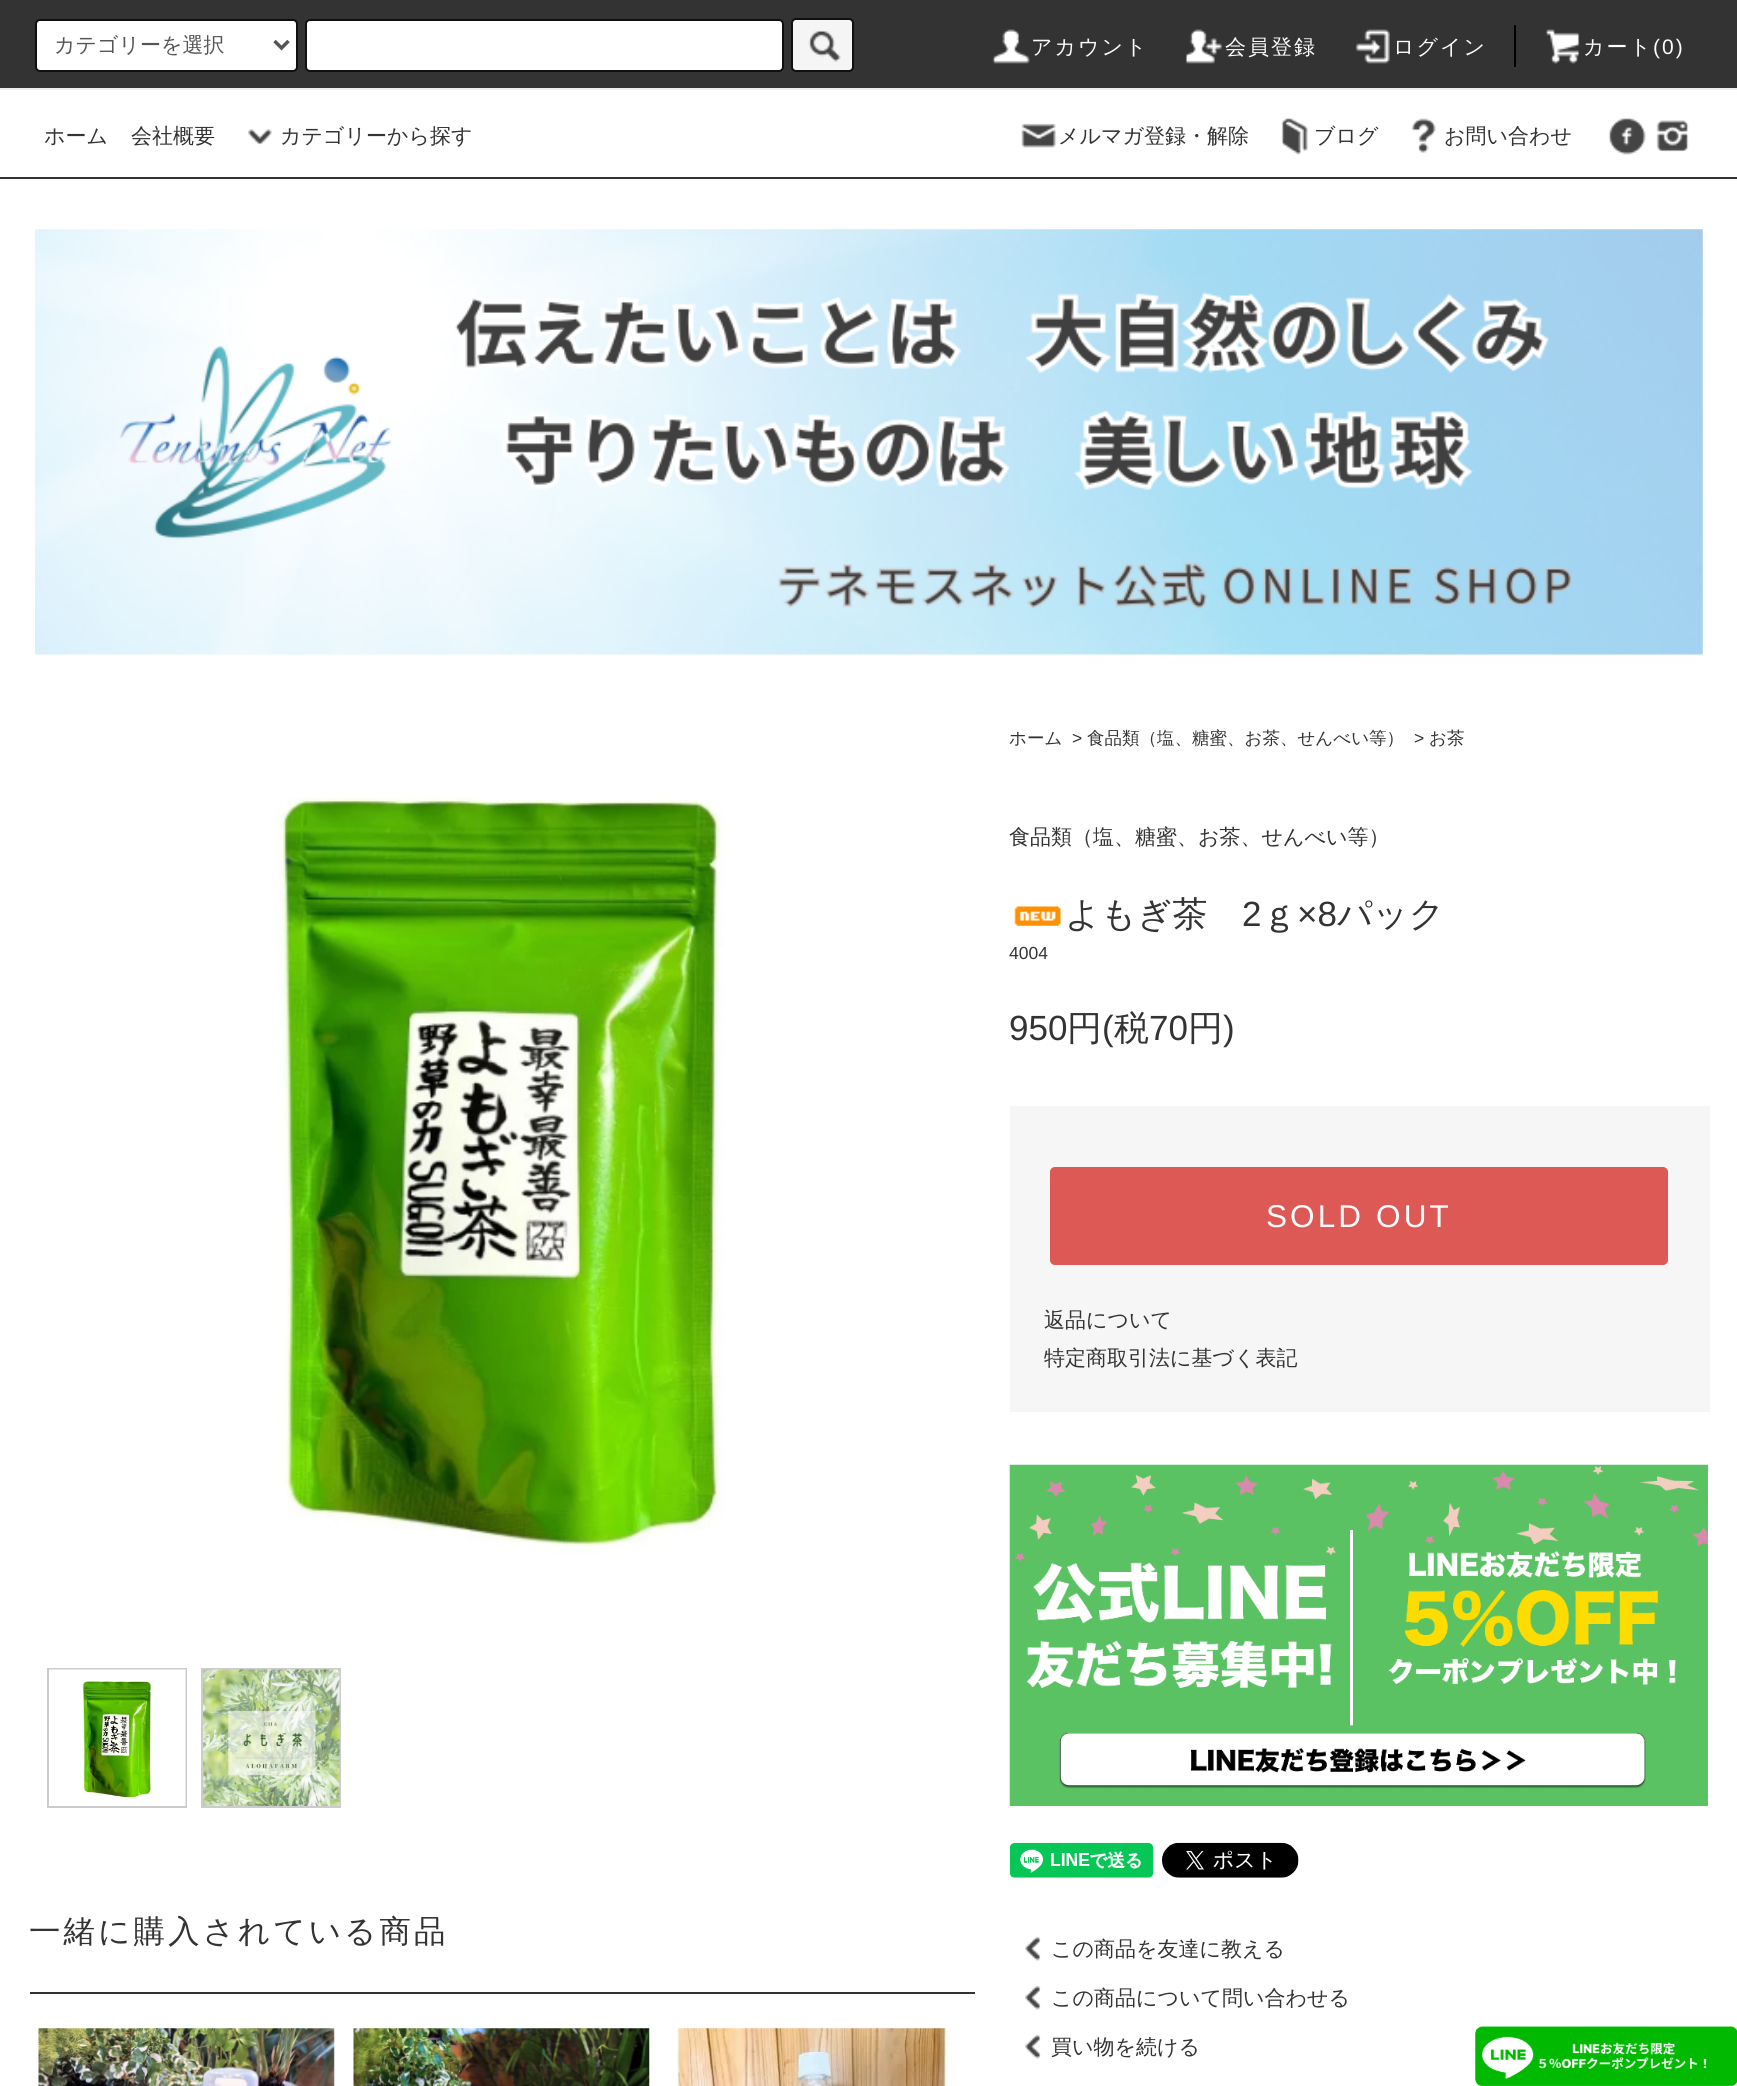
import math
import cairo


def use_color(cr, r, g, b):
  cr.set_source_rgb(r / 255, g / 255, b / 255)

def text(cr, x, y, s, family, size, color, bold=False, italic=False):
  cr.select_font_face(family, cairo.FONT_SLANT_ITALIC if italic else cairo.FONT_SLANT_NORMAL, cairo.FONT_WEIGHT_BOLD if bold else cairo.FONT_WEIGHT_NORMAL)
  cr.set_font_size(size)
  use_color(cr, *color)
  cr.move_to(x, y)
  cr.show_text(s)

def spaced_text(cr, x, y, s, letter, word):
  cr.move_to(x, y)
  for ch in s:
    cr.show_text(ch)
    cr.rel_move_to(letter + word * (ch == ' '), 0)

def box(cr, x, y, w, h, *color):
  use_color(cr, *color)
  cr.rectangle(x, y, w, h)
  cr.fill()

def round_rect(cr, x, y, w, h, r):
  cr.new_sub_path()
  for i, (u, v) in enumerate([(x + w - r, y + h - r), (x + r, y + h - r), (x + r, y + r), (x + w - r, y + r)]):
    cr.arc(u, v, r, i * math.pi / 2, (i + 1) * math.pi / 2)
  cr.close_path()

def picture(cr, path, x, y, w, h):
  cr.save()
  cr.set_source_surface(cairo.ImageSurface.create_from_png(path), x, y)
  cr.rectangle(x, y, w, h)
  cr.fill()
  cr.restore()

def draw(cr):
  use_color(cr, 255, 255, 255)
  cr.paint()
  box(cr, 0, 0, 1737, 88, 51, 51, 51)
  box(cr, 0, 88, 1737, 2, 238, 238, 238)
  use_color(cr, 255, 255, 255)
  round_rect(cr, 36, 20, 261, 51, 4)
  cr.fill_preserve()
  use_color(cr, 16, 16, 16)
  cr.stroke()
  cr.new_path()
  cr.move_to(274.5, 41)
  cr.line_to(281.5, 48)
  cr.line_to(288.5, 41)
  use_color(cr, 85, 85, 85)
  cr.set_line_width(3.5)
  cr.stroke()
  use_color(cr, 255, 255, 255)
  round_rect(cr, 306, 20, 477, 51, 4)
  cr.fill_preserve()
  use_color(cr, 16, 16, 16)
  cr.set_line_width(2)
  cr.stroke()
  use_color(cr, 245, 245, 245)
  round_rect(cr, 792, 19, 61, 52, 4)
  cr.fill_preserve()
  use_color(cr, 16, 16, 16)
  cr.stroke()
  picture(cr, "img_01.png", 808, 30, 33, 32)
  picture(cr, "img_02.png", 992, 29, 38, 35)
  picture(cr, "img_03.png", 1185, 29, 37, 35)
  picture(cr, "img_04.png", 1355, 29, 35, 35)
  box(cr, 1514, 25, 2, 42, 0, 0, 0)
  picture(cr, "img_05.png", 1545, 29, 35, 35)
  box(cr, 0, 177, 1737, 2, 51, 51, 51)
  picture(cr, "img_06.png", 248, 129, 24, 16)
  picture(cr, "img_07.png", 1021, 123, 35, 25)
  picture(cr, "img_08.png", 1281, 117, 27, 38)
  picture(cr, "img_09.png", 1411, 118, 25, 35)
  picture(cr, "img_10.png", 1608, 117, 38, 38)
  picture(cr, "img_11.png", 1656, 120, 33, 32)
  picture(cr, "img_12.png", 35, 229, 1668, 426)
  picture(cr, "img_13.png", 275, 793, 449, 762)
  cr.rectangle(48, 1669, 138, 138)
  use_color(cr, 204, 204, 204)
  cr.stroke()
  picture(cr, "img_14.png", 49, 1669, 137, 137)
  cr.rectangle(202, 1669, 138, 138)
  cr.stroke()
  picture(cr, "img_15.png", 203, 1669, 137, 137)
  box(cr, 30, 1992, 945, 2, 51, 51, 51)
  picture(cr, "img_16.png", 38, 2028, 297, 58)
  picture(cr, "img_17.png", 353, 2028, 297, 58)
  picture(cr, "img_18.png", 676, 2028, 277, 58)
  picture(cr, "img_19.png", 1014, 906, 47, 20)
  box(cr, 1010, 1106, 700, 306, 246, 246, 246)
  use_color(cr, 221, 89, 86)
  round_rect(cr, 1050, 1167, 618, 98, 5)
  cr.fill()
  picture(cr, "img_20.png", 1009, 1464, 699, 342)
  picture(cr, "img_21.png", 1009, 1842, 145, 36)
  picture(cr, "img_22.png", 1162, 1842, 137, 36)
  picture(cr, "img_23.png", 1025, 1936, 16, 25)
  picture(cr, "img_24.png", 1025, 1985, 16, 25)
  picture(cr, "img_23.png", 1025, 2034, 16, 25)
  picture(cr, "img_25.png", 1475, 2026, 262, 60)
  text(cr, 54, 52, "カテゴリーを選択", "WenQuanYi Zen Hei Medium", 21, (85, 85, 85))
  use_color(cr, 252, 252, 252)
  spaced_text(cr, 1031, 54, "アカウント", 2, 0)
  spaced_text(cr, 1225, 54, "会員登録", 2, 0)
  spaced_text(cr, 1393, 54, "ログイン", 2, 0)
  spaced_text(cr, 1583, 54, "カート", 2, 0)
  cr.select_font_face("Liberation Sans")
  spaced_text(cr, 1653, 54, "(0)", 2, 0)
  text(cr, 44, 143, "ホーム", "WenQuanYi Zen Hei Medium", 21, (51, 51, 51))
  text(cr, 131, 143, "会社概要", "WenQuanYi Zen Hei Medium", 21, (51, 51, 51))
  text(cr, 280, 143, "カテゴリーから探す", "WenQuanYi Zen Hei Medium", 21, (51, 51, 51))
  text(cr, 1058, 143, "メルマガ登録・解除", "WenQuanYi Zen Hei Medium", 21, (51, 51, 51))
  text(cr, 1314, 143, "ブログ", "WenQuanYi Zen Hei Medium", 21, (51, 51, 51))
  text(cr, 1444, 143, "お問い合わせ", "WenQuanYi Zen Hei Medium", 21, (51, 51, 51))
  cr.set_font_size(31.5)
  spaced_text(cr, 29, 1942, "一緒に購入されている商品", 3.1, 0)
  text(cr, 1009, 744, "ホーム", "WenQuanYi Zen Hei Medium", 17.5, (51, 51, 51))
  text(cr, 1072, 744, ">", "Liberation Sans", 17.5, (51, 51, 51))
  text(cr, 1087, 744, "食品類（塩、糖蜜、お茶、せんべい等）", "WenQuanYi Zen Hei Medium", 17.5, (51, 51, 51))
  text(cr, 1414, 744, ">", "Liberation Sans", 17.5, (51, 51, 51))
  text(cr, 1429, 744, "お茶", "WenQuanYi Zen Hei Medium", 17.5, (51, 51, 51))
  text(cr, 1009, 844, "食品類（塩、糖蜜、お茶、せんべい等）", "WenQuanYi Zen Hei Medium", 21, (51, 51, 51))
  text(cr, 1065, 926, "よもぎ茶", "WenQuanYi Zen Hei Medium", 35, (51, 51, 51))
  text(cr, 1242, 926, "2", "Liberation Sans", 35, (51, 51, 51))
  text(cr, 1262, 926, "ｇ", "WenQuanYi Zen Hei Medium", 35, (51, 51, 51))
  text(cr, 1297, 926, "×8", "Liberation Sans", 35, (51, 51, 51))
  text(cr, 1337, 926, "パック", "WenQuanYi Zen Hei Medium", 35, (51, 51, 51))
  text(cr, 1009, 959, "4004", "Liberation Sans", 17.5, (51, 51, 51))
  text(cr, 1009, 1040, "950", "Liberation Sans", 35, (51, 51, 51))
  text(cr, 1067, 1040, "円", "WenQuanYi Zen Hei Medium", 35, (51, 51, 51))
  text(cr, 1102, 1040, "(", "Liberation Sans", 35, (51, 51, 51))
  text(cr, 1114, 1040, "税", "WenQuanYi Zen Hei Medium", 35, (51, 51, 51))
  text(cr, 1149, 1040, "70", "Liberation Sans", 35, (51, 51, 51))
  text(cr, 1188, 1040, "円", "WenQuanYi Zen Hei Medium", 35, (51, 51, 51))
  text(cr, 1223, 1040, ")", "Liberation Sans", 35, (51, 51, 51))
  cr.set_font_size(31.5)
  use_color(cr, 252, 252, 252)
  spaced_text(cr, 1266, 1227, "SOLD OUT", 3.1, 0)
  text(cr, 1044, 1327, "返品について", "WenQuanYi Zen Hei Medium", 21, (51, 51, 51))
  text(cr, 1044, 1365, "特定商取引法に基づく表記", "WenQuanYi Zen Hei Medium", 21, (51, 51, 51))
  text(cr, 1051, 1956, "この商品を友達に教える", "WenQuanYi Zen Hei Medium", 21, (51, 51, 51))
  text(cr, 1051, 2005, "この商品について問い合わせる", "WenQuanYi Zen Hei Medium", 21, (51, 51, 51))
  text(cr, 1051, 2054, "買い物を続ける", "WenQuanYi Zen Hei Medium", 21, (51, 51, 51))


surface = cairo.ImageSurface(cairo.FORMAT_RGB24, 1737, 2086)
cr = cairo.Context(surface)
options = cairo.FontOptions()
options.set_hint_metrics(cairo.HINT_METRICS_OFF)
options.set_hint_style(cairo.HINT_STYLE_NONE)
cr.set_font_options(options)
cr.set_miter_limit(4)
draw(cr)
surface.write_to_png("out.png")
